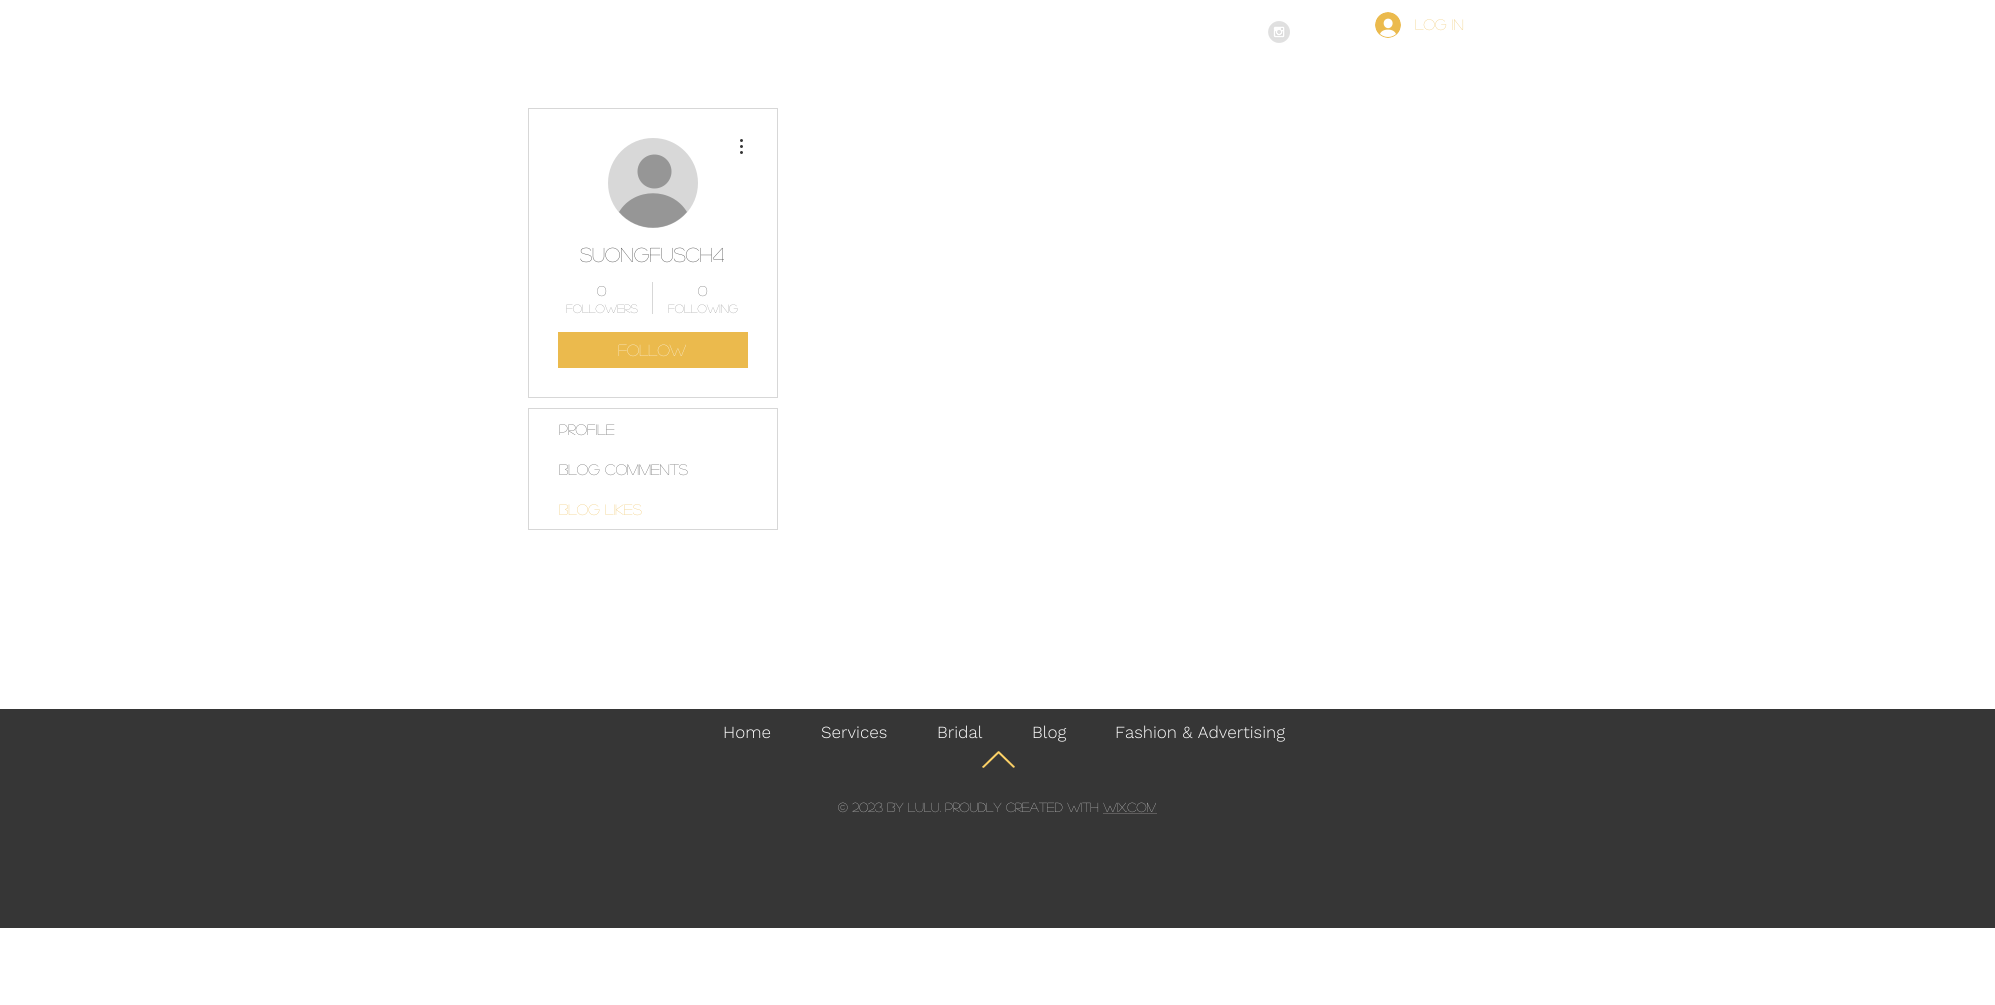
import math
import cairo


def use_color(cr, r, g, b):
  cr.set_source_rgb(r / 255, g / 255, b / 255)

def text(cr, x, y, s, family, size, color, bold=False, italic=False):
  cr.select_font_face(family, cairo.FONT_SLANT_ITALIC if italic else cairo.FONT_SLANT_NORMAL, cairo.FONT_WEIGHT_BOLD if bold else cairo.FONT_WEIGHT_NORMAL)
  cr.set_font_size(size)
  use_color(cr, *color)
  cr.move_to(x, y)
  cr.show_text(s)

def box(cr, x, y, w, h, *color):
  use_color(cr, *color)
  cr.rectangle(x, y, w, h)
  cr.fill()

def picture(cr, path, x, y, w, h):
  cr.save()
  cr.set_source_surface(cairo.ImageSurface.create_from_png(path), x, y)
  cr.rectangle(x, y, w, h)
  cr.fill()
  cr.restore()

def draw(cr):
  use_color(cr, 255, 255, 255)
  cr.paint()
  picture(cr, "img_01.png", 1268, 21, 22, 22)
  picture(cr, "img_02.png", 1375, 12, 26, 26)
  cr.rectangle(528.5, 108.5, 249, 289)
  use_color(cr, 215, 215, 215)
  cr.set_line_width(1)
  cr.stroke()
  use_color(cr, 216, 216, 216)
  cr.arc(653, 183, 45, 0, 2 * math.pi)
  cr.fill()
  use_color(cr, 150, 150, 150)
  cr.arc(654.5, 171.5, 17, 0, 2 * math.pi)
  cr.fill()
  cr.new_path()
  cr.move_to(687, 212)
  cr.curve_to(669, 233, 637, 233, 619, 212)
  cr.curve_to(634, 187, 672, 187, 687, 212)
  cr.close_path()
  cr.fill()
  picture(cr, "img_03.png", 740, 139, 3, 15)
  box(cr, 652, 282, 1, 32, 215, 215, 215)
  box(cr, 558, 332, 190, 36, 235, 186, 77)
  cr.rectangle(528.5, 408.5, 249, 121)
  use_color(cr, 215, 215, 215)
  cr.stroke()
  box(cr, 0, 709, 1995, 219, 54, 54, 54)
  picture(cr, "img_04.png", 982, 751, 33, 17)
  box(cr, 1103, 813, 54, 1, 96, 94, 94)
  text(cr, 1415, 30, "Log In", "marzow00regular", 15, (235, 186, 77))
  text(cr, 580, 262, "suongfusch4", "marzow00regular", 20, (54, 54, 54))
  text(cr, 597, 296, "0", "marzow00regular", 14, (54, 54, 54))
  text(cr, 566, 313, "Followers", "marzow00regular", 12, (114, 114, 114))
  text(cr, 698, 296, "0", "marzow00regular", 14, (54, 54, 54))
  text(cr, 668, 313, "Following", "marzow00regular", 12, (114, 114, 114))
  text(cr, 618, 356, "Follow", "marzow00regular", 16, (255, 255, 255))
  text(cr, 559, 435, "Profile", "marzow00regular", 15, (54, 54, 54))
  text(cr, 559, 475, "Blog Comments", "marzow00regular", 15, (54, 54, 54))
  text(cr, 559, 515, "Blog Likes", "marzow00regular", 15, (235, 186, 77))
  text(cr, 723, 738, "Home", "Work Sans Light", 17, (255, 255, 255))
  text(cr, 821, 738, "Services", "Work Sans Light", 17, (255, 255, 255))
  text(cr, 937, 738, "Bridal", "Work Sans Light", 17, (255, 255, 255))
  text(cr, 1032, 738, "Blog", "Work Sans Light", 17, (255, 255, 255))
  text(cr, 1115, 738, "Fashion & Advertising", "Work Sans Light", 17, (255, 255, 255))
  text(cr, 838, 812, "© 2023 by LULU. Proudly created with Wix.com", "marzow00regular", 13, (255, 255, 255))


surface = cairo.ImageSurface(cairo.FORMAT_RGB24, 1995, 1005)
cr = cairo.Context(surface)
options = cairo.FontOptions()
options.set_hint_metrics(cairo.HINT_METRICS_OFF)
options.set_hint_style(cairo.HINT_STYLE_NONE)
cr.set_font_options(options)
cr.set_miter_limit(4)
draw(cr)
surface.write_to_png("out.png")
